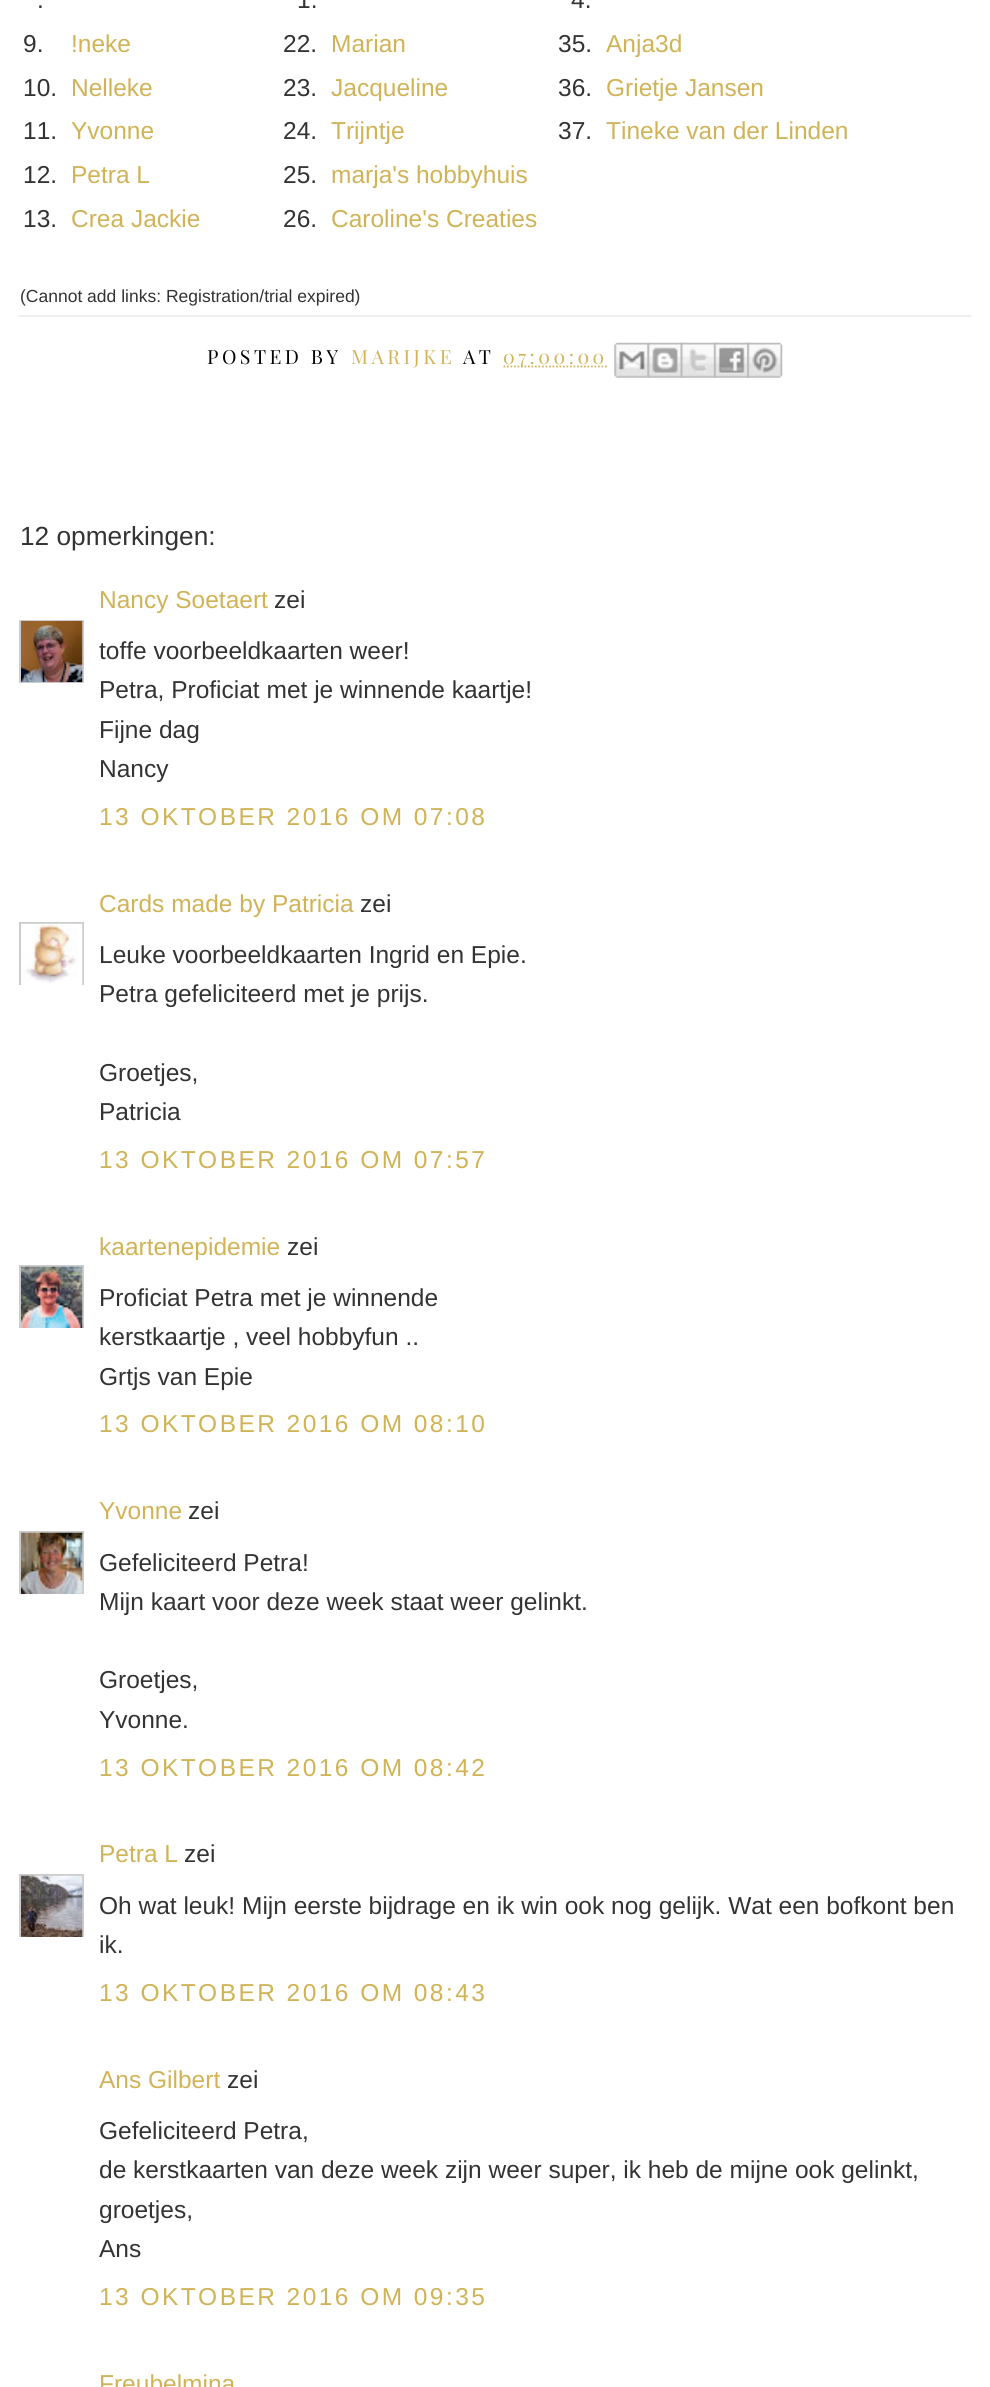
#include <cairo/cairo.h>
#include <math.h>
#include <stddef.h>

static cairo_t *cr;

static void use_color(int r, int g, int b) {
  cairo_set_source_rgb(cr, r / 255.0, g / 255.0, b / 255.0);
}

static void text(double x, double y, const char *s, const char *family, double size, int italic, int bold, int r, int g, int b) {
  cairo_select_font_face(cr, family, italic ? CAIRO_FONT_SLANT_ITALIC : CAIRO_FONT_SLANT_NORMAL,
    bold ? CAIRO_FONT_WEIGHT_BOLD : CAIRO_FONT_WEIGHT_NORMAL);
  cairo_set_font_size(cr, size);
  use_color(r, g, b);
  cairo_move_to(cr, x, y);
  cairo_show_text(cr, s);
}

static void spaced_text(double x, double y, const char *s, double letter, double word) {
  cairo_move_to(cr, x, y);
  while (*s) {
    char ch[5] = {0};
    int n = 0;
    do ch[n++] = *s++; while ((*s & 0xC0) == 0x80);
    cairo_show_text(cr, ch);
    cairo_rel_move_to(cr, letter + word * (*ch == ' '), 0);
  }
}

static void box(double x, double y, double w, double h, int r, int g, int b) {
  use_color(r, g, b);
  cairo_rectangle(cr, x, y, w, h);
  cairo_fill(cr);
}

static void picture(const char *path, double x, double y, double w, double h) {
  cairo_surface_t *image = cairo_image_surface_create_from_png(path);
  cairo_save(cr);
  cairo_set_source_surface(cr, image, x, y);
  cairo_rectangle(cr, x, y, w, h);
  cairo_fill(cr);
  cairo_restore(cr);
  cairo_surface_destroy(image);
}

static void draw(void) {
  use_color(255, 255, 255);
  cairo_paint(cr);
  box(19, 315, 952, 2, 238, 238, 238);
  cairo_new_path(cr);
  cairo_move_to(cr, 503.5, 366.5);
  cairo_line_to(cr, 608.5, 366.5);
  use_color(208, 179, 87);
  cairo_set_line_width(cr, 1.8);
  cairo_set_dash(cr, (double[]){1.75, 1.75}, 2, 0);
  cairo_stroke(cr);
  picture("img_01.png", 614, 342, 36, 36);
  picture("img_02.png", 647, 342, 36, 36);
  picture("img_03.png", 680, 342, 36, 36);
  picture("img_04.png", 714, 342, 35, 36);
  picture("img_05.png", 747, 342, 36, 36);
  cairo_save(cr);
  cairo_rectangle(cr, 19, 620, 65, 63);
  cairo_clip(cr);
  cairo_rectangle(cr, 20, 621, 63, 62);
  use_color(204, 204, 204);
  cairo_set_line_width(cr, 2);
  cairo_set_dash(cr, NULL, 0, 0);
  cairo_stroke(cr);
  cairo_restore(cr);
  picture("img_06.png", 21, 621, 62, 62);
  cairo_save(cr);
  cairo_rectangle(cr, 19, 922, 65, 63);
  cairo_clip(cr);
  cairo_rectangle(cr, 20, 923, 63, 63);
  use_color(204, 204, 204);
  cairo_set_line_width(cr, 2);
  cairo_set_dash(cr, NULL, 0, 0);
  cairo_stroke(cr);
  cairo_restore(cr);
  picture("img_07.png", 21, 923, 62, 62);
  cairo_save(cr);
  cairo_rectangle(cr, 19, 1265, 65, 63);
  cairo_clip(cr);
  cairo_rectangle(cr, 20, 1266, 63, 63);
  use_color(204, 204, 204);
  cairo_set_line_width(cr, 2);
  cairo_set_dash(cr, NULL, 0, 0);
  cairo_stroke(cr);
  cairo_restore(cr);
  picture("img_08.png", 21, 1266, 62, 62);
  cairo_save(cr);
  cairo_rectangle(cr, 19, 1531, 65, 63);
  cairo_clip(cr);
  cairo_rectangle(cr, 20, 1532, 63, 63);
  use_color(204, 204, 204);
  cairo_set_line_width(cr, 2);
  cairo_set_dash(cr, NULL, 0, 0);
  cairo_stroke(cr);
  cairo_restore(cr);
  picture("img_09.png", 21, 1532, 62, 62);
  cairo_save(cr);
  cairo_rectangle(cr, 19, 1874, 65, 63);
  cairo_clip(cr);
  cairo_rectangle(cr, 20, 1875, 63, 63);
  use_color(204, 204, 204);
  cairo_set_line_width(cr, 2);
  cairo_set_dash(cr, NULL, 0, 0);
  cairo_stroke(cr);
  cairo_restore(cr);
  picture("img_10.png", 21, 1875, 62, 62);
  text(37, 8, ".", "Liberation Sans", 24.5, 0, 0, 51, 51, 51);
  text(297, 8, "1.", "Liberation Sans", 24.5, 0, 0, 51, 51, 51);
  text(571, 8, "4.", "Liberation Sans", 24.5, 0, 0, 51, 51, 51);
  text(23, 52, "9.", "Liberation Sans", 24.5, 0, 0, 51, 51, 51);
  text(71, 52, "!neke", "Liberation Sans", 24.5, 0, 0, 208, 179, 87);
  text(283, 52, "22.", "Liberation Sans", 24.5, 0, 0, 51, 51, 51);
  text(331, 52, "Marian", "Liberation Sans", 24.5, 0, 0, 208, 179, 87);
  text(558, 52, "35.", "Liberation Sans", 24.5, 0, 0, 51, 51, 51);
  text(606, 52, "Anja3d", "Liberation Sans", 24.5, 0, 0, 208, 179, 87);
  text(23, 96, "10.", "Liberation Sans", 24.5, 0, 0, 51, 51, 51);
  text(71, 96, "Nelleke", "Liberation Sans", 24.5, 0, 0, 208, 179, 87);
  text(283, 96, "23.", "Liberation Sans", 24.5, 0, 0, 51, 51, 51);
  text(331, 96, "Jacqueline", "Liberation Sans", 24.5, 0, 0, 208, 179, 87);
  text(558, 96, "36.", "Liberation Sans", 24.5, 0, 0, 51, 51, 51);
  text(606, 96, "Grietje Jansen", "Liberation Sans", 24.5, 0, 0, 208, 179, 87);
  text(23, 139, "11.", "Liberation Sans", 24.5, 0, 0, 51, 51, 51);
  text(71, 139, "Yvonne", "Liberation Sans", 24.5, 0, 0, 208, 179, 87);
  text(283, 139, "24.", "Liberation Sans", 24.5, 0, 0, 51, 51, 51);
  text(331, 139, "Trijntje", "Liberation Sans", 24.5, 0, 0, 208, 179, 87);
  text(558, 139, "37.", "Liberation Sans", 24.5, 0, 0, 51, 51, 51);
  text(606, 139, "Tineke van der Linden", "Liberation Sans", 24.5, 0, 0, 208, 179, 87);
  text(23, 183, "12.", "Liberation Sans", 24.5, 0, 0, 51, 51, 51);
  text(71, 183, "Petra L", "Liberation Sans", 24.5, 0, 0, 208, 179, 87);
  text(283, 183, "25.", "Liberation Sans", 24.5, 0, 0, 51, 51, 51);
  text(331, 183, "marja's hobbyhuis", "Liberation Sans", 24.5, 0, 0, 208, 179, 87);
  text(23, 227, "13.", "Liberation Sans", 24.5, 0, 0, 51, 51, 51);
  text(71, 227, "Crea Jackie", "Liberation Sans", 24.5, 0, 0, 208, 179, 87);
  text(283, 227, "26.", "Liberation Sans", 24.5, 0, 0, 51, 51, 51);
  text(331, 227, "Caroline's Creaties", "Liberation Sans", 24.5, 0, 0, 208, 179, 87);
  text(20, 302, "(Cannot add links: Registration/trial expired)", "Liberation Sans", 17.5, 0, 0, 51, 51, 51);
  cairo_select_font_face(cr, "Playfair Display", CAIRO_FONT_SLANT_NORMAL, CAIRO_FONT_WEIGHT_NORMAL);
  cairo_set_font_size(cr, 19.5);
  use_color(0, 0, 0);
  spaced_text(207, 364, "POSTED BY", 3.5, 0);
  use_color(208, 179, 87);
  spaced_text(351, 364, "MARIJKE", 3.5, 0);
  use_color(0, 0, 0);
  spaced_text(463, 364, "AT", 3.5, 0);
  use_color(208, 179, 87);
  spaced_text(503, 364, "07:00:00", 3.5, 0);
  text(20, 545, "12 opmerkingen:", "Liberation Sans", 26.25, 0, 0, 51, 51, 51);
  text(99, 608, "Nancy Soetaert", "Liberation Sans", 24.5, 0, 0, 208, 179, 87);
  text(274, 608, "zei", "Liberation Sans", 24.5, 0, 0, 51, 51, 51);
  text(99, 659, "toffe voorbeeldkaarten weer!", "Liberation Sans", 24.5, 0, 0, 51, 51, 51);
  text(99, 698, "Petra, Proficiat met je winnende kaartje!", "Liberation Sans", 24.5, 0, 0, 51, 51, 51);
  text(99, 738, "Fijne dag", "Liberation Sans", 24.5, 0, 0, 51, 51, 51);
  text(99, 777, "Nancy", "Liberation Sans", 24.5, 0, 0, 51, 51, 51);
  use_color(208, 179, 87);
  spaced_text(99, 825, "13 OKTOBER 2016 OM 07:08", 2.45, 0);
  text(99, 912, "Cards made by Patricia", "Liberation Sans", 24.5, 0, 0, 208, 179, 87);
  text(360, 912, "zei", "Liberation Sans", 24.5, 0, 0, 51, 51, 51);
  text(99, 963, "Leuke voorbeeldkaarten Ingrid en Epie.", "Liberation Sans", 24.5, 0, 0, 51, 51, 51);
  text(99, 1002, "Petra gefeliciteerd met je prijs.", "Liberation Sans", 24.5, 0, 0, 51, 51, 51);
  text(99, 1081, "Groetjes,", "Liberation Sans", 24.5, 0, 0, 51, 51, 51);
  text(99, 1120, "Patricia", "Liberation Sans", 24.5, 0, 0, 51, 51, 51);
  use_color(208, 179, 87);
  spaced_text(99, 1168, "13 OKTOBER 2016 OM 07:57", 2.45, 0);
  text(99, 1255, "kaartenepidemie", "Liberation Sans", 24.5, 0, 0, 208, 179, 87);
  text(287, 1255, "zei", "Liberation Sans", 24.5, 0, 0, 51, 51, 51);
  text(99, 1306, "Proficiat Petra met je winnende", "Liberation Sans", 24.5, 0, 0, 51, 51, 51);
  text(99, 1345, "kerstkaartje , veel hobbyfun ..", "Liberation Sans", 24.5, 0, 0, 51, 51, 51);
  text(99, 1385, "Grtjs van Epie", "Liberation Sans", 24.5, 0, 0, 51, 51, 51);
  use_color(208, 179, 87);
  spaced_text(99, 1432, "13 OKTOBER 2016 OM 08:10", 2.45, 0);
  text(99, 1519, "Yvonne", "Liberation Sans", 24.5, 0, 0, 208, 179, 87);
  text(188, 1519, "zei", "Liberation Sans", 24.5, 0, 0, 51, 51, 51);
  text(99, 1571, "Gefeliciteerd Petra!", "Liberation Sans", 24.5, 0, 0, 51, 51, 51);
  text(99, 1610, "Mijn kaart voor deze week staat weer gelinkt.", "Liberation Sans", 24.5, 0, 0, 51, 51, 51);
  text(99, 1688, "Groetjes,", "Liberation Sans", 24.5, 0, 0, 51, 51, 51);
  text(99, 1728, "Yvonne.", "Liberation Sans", 24.5, 0, 0, 51, 51, 51);
  use_color(208, 179, 87);
  spaced_text(99, 1776, "13 OKTOBER 2016 OM 08:42", 2.45, 0);
  text(99, 1862, "Petra L", "Liberation Sans", 24.5, 0, 0, 208, 179, 87);
  text(184, 1862, "zei", "Liberation Sans", 24.5, 0, 0, 51, 51, 51);
  text(99, 1914, "Oh wat leuk! Mijn eerste bijdrage en ik win ook nog gelijk. Wat een bofkont ben", "Liberation Sans", 24.5, 0, 0, 51, 51, 51);
  text(99, 1953, "ik.", "Liberation Sans", 24.5, 0, 0, 51, 51, 51);
  use_color(208, 179, 87);
  spaced_text(99, 2001, "13 OKTOBER 2016 OM 08:43", 2.45, 0);
  text(99, 2088, "Ans Gilbert", "Liberation Sans", 24.5, 0, 0, 208, 179, 87);
  text(227, 2088, "zei", "Liberation Sans", 24.5, 0, 0, 51, 51, 51);
  text(99, 2139, "Gefeliciteerd Petra,", "Liberation Sans", 24.5, 0, 0, 51, 51, 51);
  text(99, 2178, "de kerstkaarten van deze week zijn weer super, ik heb de mijne ook gelinkt,", "Liberation Sans", 24.5, 0, 0, 51, 51, 51);
  text(99, 2218, "groetjes,", "Liberation Sans", 24.5, 0, 0, 51, 51, 51);
  text(99, 2257, "Ans", "Liberation Sans", 24.5, 0, 0, 51, 51, 51);
  use_color(208, 179, 87);
  spaced_text(99, 2305, "13 OKTOBER 2016 OM 09:35", 2.45, 0);
  text(99, 2392, "Freubelmina", "Liberation Sans", 24.5, 0, 0, 208, 179, 87);
}

int main(void) {
  cairo_surface_t *surface = cairo_image_surface_create(CAIRO_FORMAT_RGB24, 990, 2387);
  cr = cairo_create(surface);
  cairo_font_options_t *options = cairo_font_options_create();
  cairo_font_options_set_hint_metrics(options, CAIRO_HINT_METRICS_OFF);
  cairo_font_options_set_hint_style(options, CAIRO_HINT_STYLE_NONE);
  cairo_set_font_options(cr, options);
  cairo_set_miter_limit(cr, 4);
  draw();
  cairo_surface_write_to_png(surface, "out.png");
  cairo_font_options_destroy(options);
  cairo_destroy(cr);
  cairo_surface_destroy(surface);
  return 0;
}
